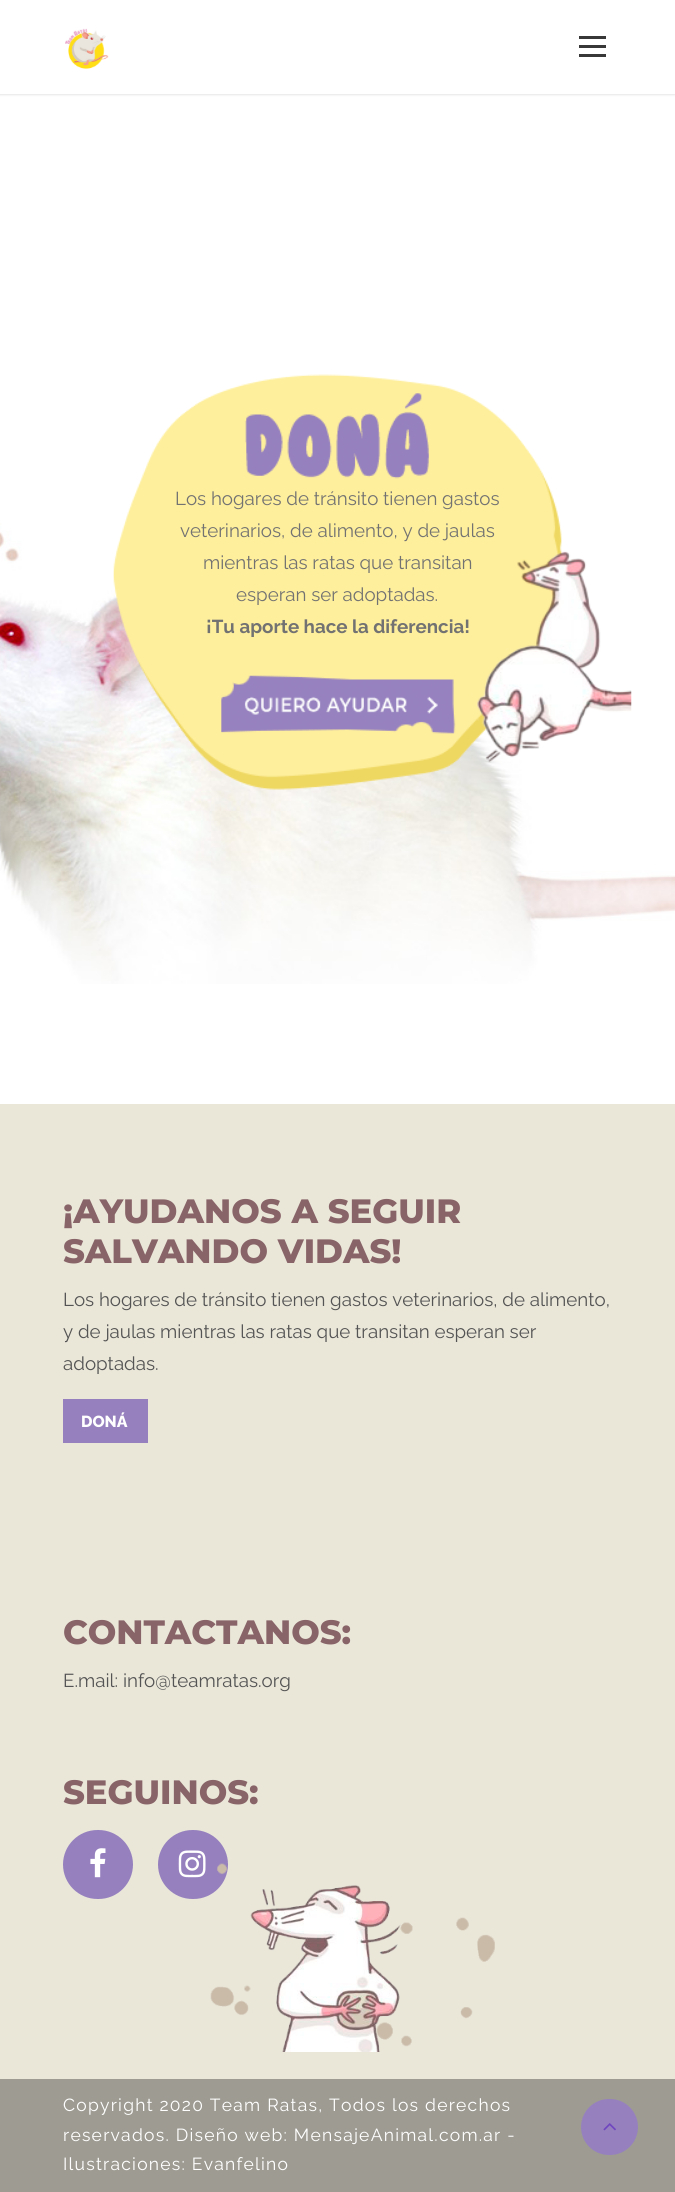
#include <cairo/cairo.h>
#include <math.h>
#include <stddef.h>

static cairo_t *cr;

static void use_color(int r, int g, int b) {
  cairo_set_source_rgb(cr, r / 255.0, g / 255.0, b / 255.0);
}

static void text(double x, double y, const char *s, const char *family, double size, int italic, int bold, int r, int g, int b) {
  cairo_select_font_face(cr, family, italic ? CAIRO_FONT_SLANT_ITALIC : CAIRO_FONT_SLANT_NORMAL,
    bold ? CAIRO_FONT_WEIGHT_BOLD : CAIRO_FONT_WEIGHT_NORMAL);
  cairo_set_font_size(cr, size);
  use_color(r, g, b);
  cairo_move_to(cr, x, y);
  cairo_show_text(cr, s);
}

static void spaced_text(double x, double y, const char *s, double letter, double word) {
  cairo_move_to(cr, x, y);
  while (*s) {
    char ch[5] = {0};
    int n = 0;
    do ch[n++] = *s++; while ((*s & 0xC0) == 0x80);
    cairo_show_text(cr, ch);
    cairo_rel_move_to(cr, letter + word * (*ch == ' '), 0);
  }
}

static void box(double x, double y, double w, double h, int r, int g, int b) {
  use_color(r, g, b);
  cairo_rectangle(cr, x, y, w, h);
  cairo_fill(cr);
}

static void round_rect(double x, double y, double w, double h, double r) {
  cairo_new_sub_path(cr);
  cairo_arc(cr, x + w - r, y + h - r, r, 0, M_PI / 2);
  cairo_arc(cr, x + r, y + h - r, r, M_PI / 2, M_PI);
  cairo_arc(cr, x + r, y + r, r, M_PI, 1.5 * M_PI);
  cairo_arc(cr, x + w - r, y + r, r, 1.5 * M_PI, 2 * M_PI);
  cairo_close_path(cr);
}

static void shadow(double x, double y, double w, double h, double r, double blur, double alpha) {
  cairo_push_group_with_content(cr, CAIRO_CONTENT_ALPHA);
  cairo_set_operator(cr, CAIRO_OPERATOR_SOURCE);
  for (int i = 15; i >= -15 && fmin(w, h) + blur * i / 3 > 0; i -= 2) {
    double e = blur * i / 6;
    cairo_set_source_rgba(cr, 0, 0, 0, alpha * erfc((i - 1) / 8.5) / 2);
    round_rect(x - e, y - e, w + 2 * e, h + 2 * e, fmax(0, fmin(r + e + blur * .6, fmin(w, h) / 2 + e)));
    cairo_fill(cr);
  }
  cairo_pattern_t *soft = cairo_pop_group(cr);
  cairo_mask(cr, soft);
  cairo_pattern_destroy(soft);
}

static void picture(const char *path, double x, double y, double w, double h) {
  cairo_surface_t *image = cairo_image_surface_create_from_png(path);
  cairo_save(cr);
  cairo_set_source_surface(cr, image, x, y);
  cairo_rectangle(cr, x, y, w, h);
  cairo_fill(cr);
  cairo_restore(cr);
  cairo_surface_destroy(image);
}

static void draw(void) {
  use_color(255, 255, 255);
  cairo_paint(cr);
  use_color(0, 0, 0);
  shadow(0, 1, 675, 94, 0, 1, 0.1);
  box(0, 0, 675, 94, 255, 255, 255);
  picture("img_01.png", 65, 28, 44, 41);
  box(579, 36, 27, 3, 56, 56, 56);
  box(579, 45, 27, 3, 56, 56, 56);
  box(579, 54, 27, 3, 56, 56, 56);
  picture("img_05.png", 0, 523, 675, 461);
  picture("img_02.png", 113, 374, 519, 416);
  picture("img_03.png", 245, 393, 184, 86);
  picture("img_04.png", 221, 675, 235, 59);
  box(0, 1104, 675, 975, 234, 231, 217);
  box(63, 1399, 85, 44, 150, 129, 190);
  round_rect(63, 1830, 70, 69, 34.5);
  cairo_fill(cr);
  picture("img_06.png", 90, 1848, 16, 30);
  round_rect(158, 1830, 70, 69, 34.5);
  cairo_fill(cr);
  picture("img_07.png", 178, 1850, 28, 28);
  picture("img_08.png", 210, 1863, 285, 189);
  box(0, 2079, 675, 113, 157, 155, 146);
  use_color(150, 129, 190);
  round_rect(581, 2099, 57, 56, 28);
  cairo_fill(cr);
  picture("img_09.png", 603, 2123, 13, 8);
  text(175, 505, "Los hogares de tránsito tienen gastos", "Raleway", 18.75, 0, 0, 114, 114, 114);
  text(180, 537, "veterinarios, de alimento, y de jaulas", "Raleway", 18.75, 0, 0, 114, 114, 114);
  text(203, 569, "mientras las ratas que transitan", "Raleway", 18.75, 0, 0, 114, 114, 114);
  text(236, 601, "esperan ser adoptadas.", "Raleway", 18.75, 0, 0, 114, 114, 114);
  text(206, 633, "¡Tu aporte hace la diferencia!", "Raleway", 18.75, 0, 1, 114, 114, 114);
  text(63, 1223, "¡AYUDANOS A SEGUIR", "Montserrat ExtraBold", 33.75, 0, 0, 136, 99, 103);
  text(63, 1263, "SALVANDO VIDAS!", "Montserrat ExtraBold", 33.75, 0, 0, 136, 99, 103);
  text(63, 1306, "Los hogares de tránsito tienen gastos veterinarios, de alimento,", "Raleway", 18.75, 0, 0, 84, 84, 84);
  text(63, 1338, "y de jaulas mientras las ratas que transitan esperan ser", "Raleway", 18.75, 0, 0, 84, 84, 84);
  text(63, 1370, "adoptadas.", "Raleway", 18.75, 0, 0, 84, 84, 84);
  text(81, 1427, "DONÁ", "Raleway ExtraBold", 16, 0, 0, 255, 255, 255);
  text(63, 1644, "CONTACTANOS:", "Montserrat ExtraBold", 33.75, 0, 0, 136, 99, 103);
  text(63, 1687, "E.mail: info@teamratas.org", "Raleway", 18.75, 0, 0, 84, 84, 84);
  text(63, 1804, "SEGUINOS:", "Montserrat ExtraBold", 33.75, 0, 0, 136, 99, 103);
  cairo_select_font_face(cr, "Raleway", CAIRO_FONT_SLANT_NORMAL, CAIRO_FONT_WEIGHT_NORMAL);
  cairo_set_font_size(cr, 17.5);
  use_color(255, 255, 255);
  spaced_text(63, 2111, "Copyright 2020 Team Ratas, Todos los derechos", 1.25, 0);
  spaced_text(63, 2141, "reservados. Diseño web: MensajeAnimal.com.ar -", 1.25, 0);
  spaced_text(63, 2170, "Ilustraciones: Evanfelino", 1.25, 0);
}

int main(void) {
  cairo_surface_t *surface = cairo_image_surface_create(CAIRO_FORMAT_RGB24, 675, 2192);
  cr = cairo_create(surface);
  cairo_font_options_t *options = cairo_font_options_create();
  cairo_font_options_set_hint_metrics(options, CAIRO_HINT_METRICS_OFF);
  cairo_font_options_set_hint_style(options, CAIRO_HINT_STYLE_NONE);
  cairo_set_font_options(cr, options);
  cairo_set_miter_limit(cr, 4);
  draw();
  cairo_surface_write_to_png(surface, "out.png");
  cairo_font_options_destroy(options);
  cairo_destroy(cr);
  cairo_surface_destroy(surface);
  return 0;
}
